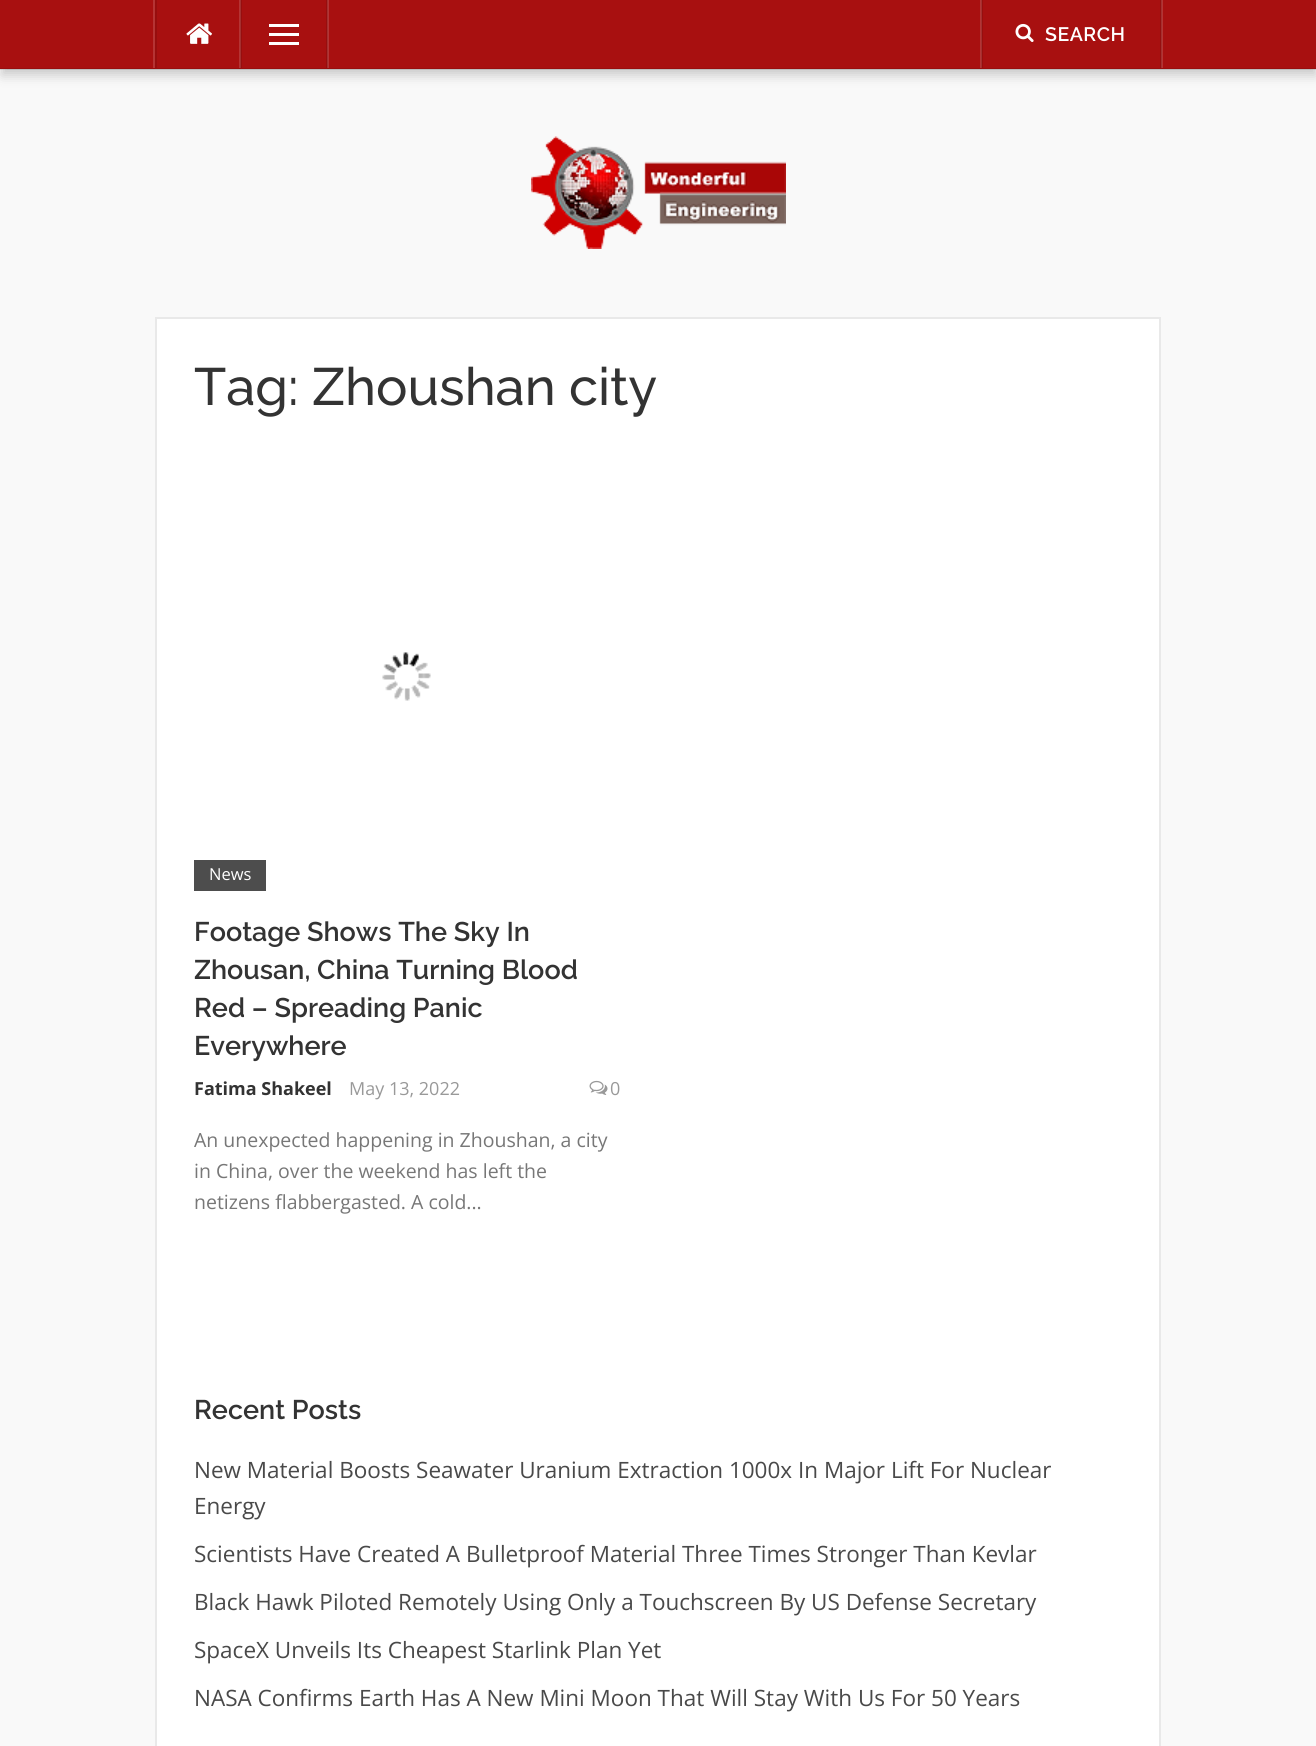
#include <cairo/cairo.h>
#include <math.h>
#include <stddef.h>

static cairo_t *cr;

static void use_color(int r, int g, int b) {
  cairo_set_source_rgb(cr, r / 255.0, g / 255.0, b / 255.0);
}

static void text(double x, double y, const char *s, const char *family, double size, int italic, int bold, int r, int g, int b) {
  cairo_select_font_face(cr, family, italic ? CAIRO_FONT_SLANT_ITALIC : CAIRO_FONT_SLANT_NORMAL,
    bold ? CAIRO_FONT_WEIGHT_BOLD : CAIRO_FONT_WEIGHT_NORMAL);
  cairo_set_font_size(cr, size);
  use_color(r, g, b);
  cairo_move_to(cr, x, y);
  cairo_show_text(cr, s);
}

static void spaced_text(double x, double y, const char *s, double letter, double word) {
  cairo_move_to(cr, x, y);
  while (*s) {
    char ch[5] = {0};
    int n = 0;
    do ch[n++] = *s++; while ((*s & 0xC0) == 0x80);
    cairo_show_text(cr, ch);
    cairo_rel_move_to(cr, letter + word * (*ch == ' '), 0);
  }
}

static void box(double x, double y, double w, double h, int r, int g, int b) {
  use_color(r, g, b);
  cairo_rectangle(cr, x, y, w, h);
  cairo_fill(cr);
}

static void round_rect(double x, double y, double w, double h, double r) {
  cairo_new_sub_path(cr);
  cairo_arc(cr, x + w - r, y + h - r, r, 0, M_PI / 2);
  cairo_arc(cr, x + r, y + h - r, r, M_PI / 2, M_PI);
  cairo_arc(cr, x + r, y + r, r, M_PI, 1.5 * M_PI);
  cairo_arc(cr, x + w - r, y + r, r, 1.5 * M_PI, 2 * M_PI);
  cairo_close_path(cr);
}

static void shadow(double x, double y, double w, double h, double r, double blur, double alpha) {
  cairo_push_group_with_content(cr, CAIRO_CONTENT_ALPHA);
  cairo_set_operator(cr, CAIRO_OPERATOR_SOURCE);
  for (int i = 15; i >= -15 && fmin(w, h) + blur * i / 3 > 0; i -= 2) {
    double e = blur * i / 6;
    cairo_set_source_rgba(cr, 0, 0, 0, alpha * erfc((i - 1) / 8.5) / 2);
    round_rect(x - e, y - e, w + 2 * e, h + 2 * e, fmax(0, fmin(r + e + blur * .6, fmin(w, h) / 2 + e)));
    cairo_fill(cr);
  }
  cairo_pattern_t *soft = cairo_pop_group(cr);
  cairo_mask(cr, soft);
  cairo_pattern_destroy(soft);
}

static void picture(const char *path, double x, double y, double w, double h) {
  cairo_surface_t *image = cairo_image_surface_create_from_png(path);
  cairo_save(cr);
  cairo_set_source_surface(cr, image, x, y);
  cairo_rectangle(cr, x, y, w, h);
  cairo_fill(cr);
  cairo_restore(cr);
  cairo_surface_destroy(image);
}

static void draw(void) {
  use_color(249, 249, 249);
  cairo_paint(cr);
  use_color(0, 0, 0);
  shadow(2, 9, 1314, 66, 0, 6, 0.2);
  box(0, 0, 1316, 69, 168, 16, 16);
  box(982, 0, 1, 68, 151, 14, 14);
  box(1160, 0, 1, 68, 151, 14, 14);
  box(326, 0, 1, 68, 151, 14, 14);
  box(241, 0, 1, 68, 151, 14, 14);
  box(153, 0, 2, 68, 181, 52, 52);
  box(155, 0, 2, 68, 151, 14, 14);
  picture("img_01.png", 186, 23, 26, 21);
  box(239, 0, 1, 68, 181, 52, 52);
  box(240, 0, 1, 68, 163, 47, 47);
  box(269, 33, 30, 3, 255, 255, 255);
  box(269, 24, 30, 3, 255, 255, 255);
  box(269, 42, 30, 3, 255, 255, 255);
  box(328, 0, 1, 68, 181, 52, 52);
  box(327, 0, 1, 68, 163, 47, 47);
  box(980, 0, 1, 68, 181, 52, 52);
  box(981, 0, 1, 68, 163, 47, 47);
  picture("img_02.png", 1015, 23, 19, 19);
  box(1162, 0, 1, 68, 181, 52, 52);
  box(1161, 0, 1, 68, 163, 47, 47);
  cairo_set_source_rgba(cr, 0, 0, 0, 0.1);
  cairo_rectangle(cr, 0, 68, 1316, 2);
  cairo_fill(cr);
  picture("img_03.png", 531, 136, 255, 113);
  use_color(255, 255, 255);
  cairo_rectangle(cr, 156, 318, 1004, 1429);
  cairo_fill_preserve(cr);
  use_color(233, 233, 233);
  cairo_stroke(cr);
  picture("img_04.png", 382, 652, 49, 49);
  box(194, 860, 72, 31, 77, 77, 77);
  picture("img_05.png", 589, 1080, 19, 15);
  cairo_select_font_face(cr, "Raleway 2 Thin", CAIRO_FONT_SLANT_NORMAL, CAIRO_FONT_WEIGHT_NORMAL);
  cairo_set_font_size(cr, 19.5);
  use_color(255, 255, 255);
  spaced_text(1045, 41, "SEARCH", 0.5, 0);
  text(194, 405, "Tag: Zhoushan city", "Raleway Thin", 52.5, 0, 0, 51, 51, 51);
  text(209, 880, "News", "Open Sans", 16.5, 0, 0, 255, 255, 255);
  text(194, 941, "Footage Shows The Sky In", "Raleway 2 Thin", 27, 0, 0, 51, 51, 51);
  text(194, 979, "Zhousan, China Turning Blood", "Raleway 2 Thin", 27, 0, 0, 51, 51, 51);
  text(194, 1017, "Red – Spreading Panic", "Raleway 2 Thin", 27, 0, 0, 51, 51, 51);
  text(194, 1055, "Everywhere", "Raleway 2 Thin", 27, 0, 0, 51, 51, 51);
  text(194, 1095, "Fatima Shakeel", "Open Sans", 18, 0, 1, 51, 51, 51);
  text(349, 1095, "May 13, 2022", "Open Sans", 18, 0, 0, 153, 153, 153);
  text(610, 1095, "0", "Open Sans", 18, 0, 0, 153, 153, 153);
  text(194, 1147, "An unexpected happening in Zhoushan, a city", "Open Sans", 19.5, 0, 0, 119, 119, 119);
  text(194, 1178, "in China, over the weekend has left the", "Open Sans", 19.5, 0, 0, 119, 119, 119);
  text(194, 1209, "netizens flabbergasted. A cold...", "Open Sans", 19.5, 0, 0, 119, 119, 119);
  text(194, 1419, "Recent Posts", "Raleway 2 Thin", 27, 0, 0, 51, 51, 51);
  text(194, 1478, "New Material Boosts Seawater Uranium Extraction 1000x In Major Lift For Nuclear", "Open Sans", 22.5, 0, 0, 73, 73, 73);
  text(194, 1514, "Energy", "Open Sans", 22.5, 0, 0, 73, 73, 73);
  text(194, 1562, "Scientists Have Created A Bulletproof Material Three Times Stronger Than Kevlar", "Open Sans", 22.5, 0, 0, 73, 73, 73);
  text(194, 1610, "Black Hawk Piloted Remotely Using Only a Touchscreen By US Defense Secretary", "Open Sans", 22.5, 0, 0, 73, 73, 73);
  text(194, 1658, "SpaceX Unveils Its Cheapest Starlink Plan Yet", "Open Sans", 22.5, 0, 0, 73, 73, 73);
  text(194, 1706, "NASA Confirms Earth Has A New Mini Moon That Will Stay With Us For 50 Years", "Open Sans", 22.5, 0, 0, 73, 73, 73);
}

int main(void) {
  cairo_surface_t *surface = cairo_image_surface_create(CAIRO_FORMAT_RGB24, 1316, 1746);
  cr = cairo_create(surface);
  cairo_font_options_t *options = cairo_font_options_create();
  cairo_font_options_set_hint_metrics(options, CAIRO_HINT_METRICS_OFF);
  cairo_font_options_set_hint_style(options, CAIRO_HINT_STYLE_NONE);
  cairo_set_font_options(cr, options);
  cairo_set_miter_limit(cr, 4);
  draw();
  cairo_surface_write_to_png(surface, "out.png");
  cairo_font_options_destroy(options);
  cairo_destroy(cr);
  cairo_surface_destroy(surface);
  return 0;
}
